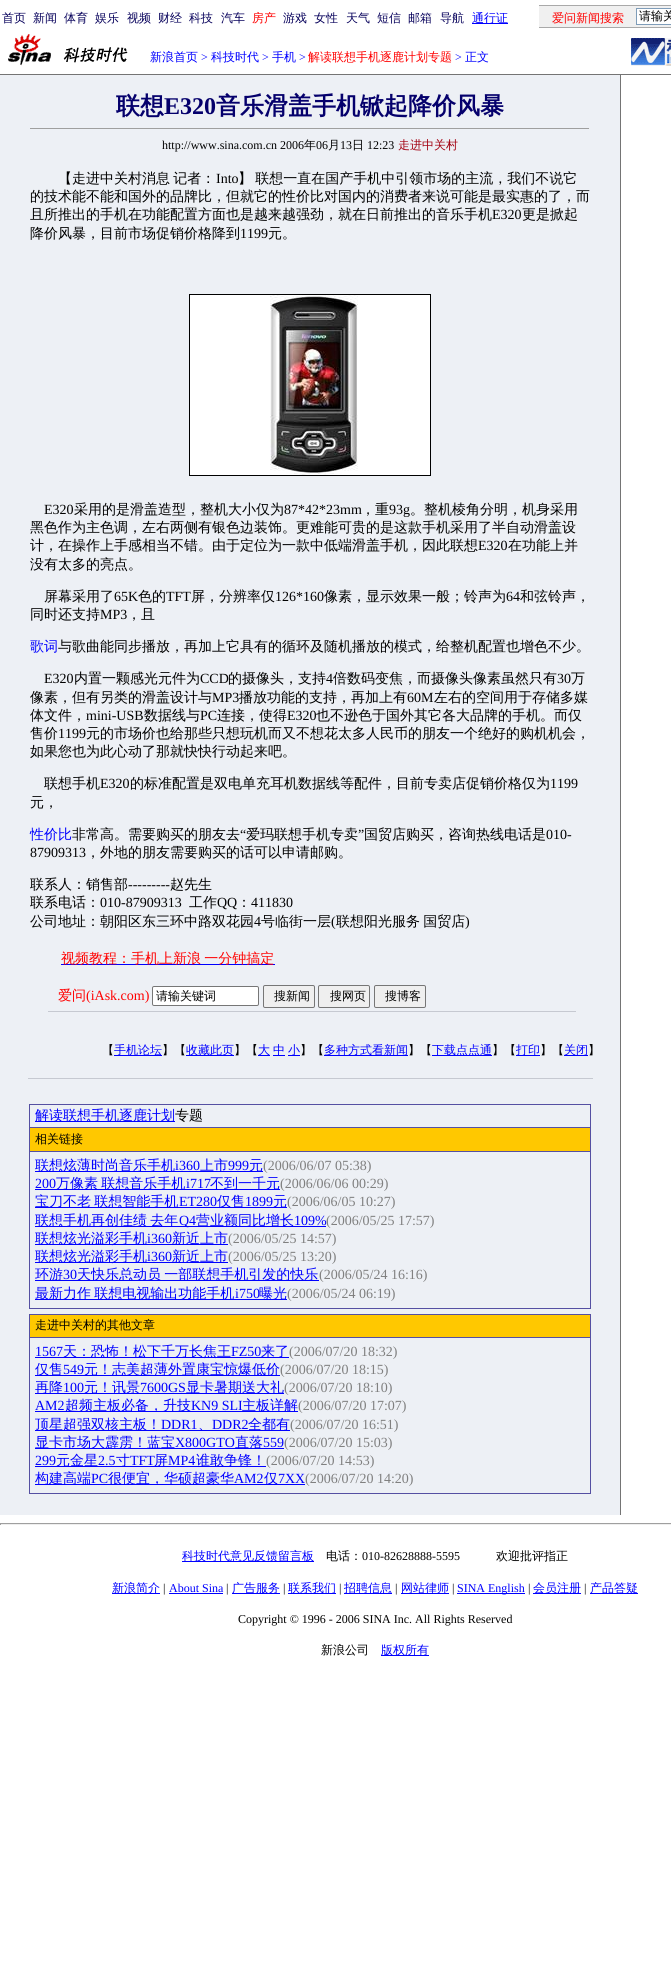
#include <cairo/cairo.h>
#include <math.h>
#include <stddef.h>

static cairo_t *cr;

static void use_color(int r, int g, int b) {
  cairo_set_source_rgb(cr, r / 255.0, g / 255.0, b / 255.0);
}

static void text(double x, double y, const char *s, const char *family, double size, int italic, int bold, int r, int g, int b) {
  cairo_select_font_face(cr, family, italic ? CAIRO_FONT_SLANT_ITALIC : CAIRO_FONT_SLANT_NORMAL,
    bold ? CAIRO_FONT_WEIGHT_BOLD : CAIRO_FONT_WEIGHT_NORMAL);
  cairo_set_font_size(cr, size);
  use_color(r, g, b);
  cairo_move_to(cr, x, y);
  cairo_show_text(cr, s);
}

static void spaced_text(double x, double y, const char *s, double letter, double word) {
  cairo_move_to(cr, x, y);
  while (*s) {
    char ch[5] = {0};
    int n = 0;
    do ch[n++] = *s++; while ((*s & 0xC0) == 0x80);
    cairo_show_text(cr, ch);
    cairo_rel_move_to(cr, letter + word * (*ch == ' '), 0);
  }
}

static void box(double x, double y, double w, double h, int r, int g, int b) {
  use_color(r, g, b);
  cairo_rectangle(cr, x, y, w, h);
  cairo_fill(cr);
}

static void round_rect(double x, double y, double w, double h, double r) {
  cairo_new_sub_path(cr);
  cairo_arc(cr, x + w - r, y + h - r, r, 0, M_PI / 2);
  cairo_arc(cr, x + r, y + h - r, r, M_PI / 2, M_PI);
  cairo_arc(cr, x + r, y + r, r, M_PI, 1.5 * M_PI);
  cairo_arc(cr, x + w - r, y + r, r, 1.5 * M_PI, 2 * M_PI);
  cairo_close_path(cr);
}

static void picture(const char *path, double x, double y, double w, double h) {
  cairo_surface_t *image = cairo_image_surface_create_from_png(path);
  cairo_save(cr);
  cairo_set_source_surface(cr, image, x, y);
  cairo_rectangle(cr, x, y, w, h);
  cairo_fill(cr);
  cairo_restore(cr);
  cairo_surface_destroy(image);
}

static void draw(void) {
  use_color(255, 255, 255);
  cairo_paint(cr);
  box(472, 23, 36, 1, 0, 0, 255);
  box(539, 5, 132, 1, 169, 169, 169);
  box(539, 6, 132, 21, 240, 240, 240);
  use_color(255, 255, 255);
  cairo_rectangle(cr, 636.5, 8.5, 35, 16);
  cairo_fill_preserve(cr);
  use_color(127, 157, 185);
  cairo_set_line_width(cr, 1);
  cairo_stroke(cr);
  box(539, 27, 132, 1, 169, 169, 169);
  picture("img_01.png", 8, 34, 120, 32);
  picture("img_02.png", 631, 38, 40, 28);
  box(0, 74, 671, 1, 116, 116, 116);
  box(0, 75, 620, 1440, 237, 240, 245);
  box(30, 128, 560, 1, 159, 159, 159);
  box(589, 128, 1, 1, 238, 238, 238);
  cairo_rectangle(cr, 189.5, 294.5, 241, 181);
  use_color(0, 0, 0);
  cairo_stroke(cr);
  picture("img_03.png", 190, 295, 240, 180);
  box(61, 964, 214, 1, 0, 0, 255);
  box(48, 1011, 528, 1, 198, 201, 209);
  use_color(255, 255, 255);
  round_rect(152.5, 986.5, 106, 19, 1.5);
  cairo_fill_preserve(cr);
  use_color(118, 118, 118);
  cairo_stroke(cr);
  use_color(239, 239, 239);
  round_rect(263.5, 985.5, 51, 22, 1.5);
  cairo_fill_preserve(cr);
  use_color(118, 118, 118);
  cairo_stroke(cr);
  use_color(239, 239, 239);
  round_rect(318.5, 985.5, 51, 22, 1.5);
  cairo_fill_preserve(cr);
  use_color(118, 118, 118);
  cairo_stroke(cr);
  use_color(239, 239, 239);
  round_rect(374.5, 985.5, 51, 22, 1.5);
  cairo_fill_preserve(cr);
  use_color(118, 118, 118);
  cairo_stroke(cr);
  box(114, 1055, 48, 1, 0, 0, 255);
  box(186, 1055, 48, 1, 0, 0, 255);
  box(258, 1055, 12, 1, 0, 0, 255);
  box(273, 1055, 12, 1, 0, 0, 255);
  box(288, 1055, 12, 1, 0, 0, 255);
  box(324, 1055, 84, 1, 0, 0, 255);
  box(432, 1055, 60, 1, 0, 0, 255);
  box(516, 1055, 24, 1, 0, 0, 255);
  box(564, 1055, 24, 1, 0, 0, 255);
  box(28, 1078, 565, 1, 198, 201, 209);
  box(29, 1104, 562, 205, 85, 80, 162);
  box(30, 1105, 560, 22, 237, 240, 245);
  box(35, 1121, 140, 1, 0, 0, 255);
  box(30, 1128, 560, 23, 255, 200, 0);
  box(30, 1152, 560, 156, 237, 240, 245);
  box(35, 1171, 228, 1, 0, 0, 255);
  box(35, 1189, 245, 1, 0, 0, 255);
  box(35, 1207, 252, 1, 0, 0, 255);
  box(35, 1226, 291, 1, 0, 0, 255);
  box(35, 1244, 193, 1, 0, 0, 255);
  box(35, 1262, 193, 1, 0, 0, 255);
  box(35, 1280, 284, 1, 0, 0, 255);
  box(35, 1299, 252, 1, 0, 0, 255);
  box(29, 1314, 562, 180, 85, 80, 162);
  box(30, 1315, 560, 22, 255, 200, 0);
  box(30, 1338, 560, 155, 237, 240, 245);
  box(35, 1357, 254, 1, 0, 0, 255);
  box(35, 1375, 245, 1, 0, 0, 255);
  box(35, 1393, 249, 1, 0, 0, 255);
  box(35, 1411, 263, 1, 0, 0, 255);
  box(35, 1430, 255, 1, 0, 0, 255);
  box(35, 1448, 249, 1, 0, 0, 255);
  box(35, 1466, 231, 1, 0, 0, 255);
  box(35, 1484, 270, 1, 0, 0, 255);
  box(620, 75, 1, 1440, 116, 116, 116);
  box(0, 1523, 671, 1, 159, 159, 159);
  box(0, 1524, 671, 1, 238, 238, 238);
  box(0, 1523, 1, 2, 159, 159, 159);
  box(182, 1561, 132, 1, 0, 0, 255);
  box(112, 1593, 48, 1, 0, 0, 255);
  box(169, 1593, 54, 1, 0, 0, 255);
  box(232, 1593, 48, 1, 0, 0, 255);
  box(288, 1593, 48, 1, 0, 0, 255);
  box(344, 1593, 48, 1, 0, 0, 255);
  box(401, 1593, 48, 1, 0, 0, 255);
  box(457, 1593, 68, 1, 0, 0, 255);
  box(533, 1593, 48, 1, 0, 0, 255);
  box(590, 1593, 48, 1, 0, 0, 255);
  box(381, 1655, 48, 1, 0, 0, 255);
  text(2, 22, "首页", "WenQuanYi Zen Hei Medium", 12, 0, 0, 7, 1, 91);
  text(33, 22, "新闻", "WenQuanYi Zen Hei Medium", 12, 0, 0, 7, 1, 91);
  text(64, 22, "体育", "WenQuanYi Zen Hei Medium", 12, 0, 0, 7, 1, 91);
  text(95, 22, "娱乐", "WenQuanYi Zen Hei Medium", 12, 0, 0, 7, 1, 91);
  text(127, 22, "视频", "WenQuanYi Zen Hei Medium", 12, 0, 0, 7, 1, 91);
  text(158, 22, "财经", "WenQuanYi Zen Hei Medium", 12, 0, 0, 7, 1, 91);
  text(189, 22, "科技", "WenQuanYi Zen Hei Medium", 12, 0, 0, 7, 1, 91);
  text(221, 22, "汽车", "WenQuanYi Zen Hei Medium", 12, 0, 0, 7, 1, 91);
  text(252, 22, "房产", "WenQuanYi Zen Hei Medium", 12, 0, 0, 255, 0, 0);
  text(283, 22, "游戏", "WenQuanYi Zen Hei Medium", 12, 0, 0, 7, 1, 91);
  text(314, 22, "女性", "WenQuanYi Zen Hei Medium", 12, 0, 0, 7, 1, 91);
  text(346, 22, "天气", "WenQuanYi Zen Hei Medium", 12, 0, 0, 7, 1, 91);
  text(377, 22, "短信", "WenQuanYi Zen Hei Medium", 12, 0, 0, 7, 1, 91);
  text(408, 22, "邮箱", "WenQuanYi Zen Hei Medium", 12, 0, 0, 7, 1, 91);
  text(440, 22, "导航", "WenQuanYi Zen Hei Medium", 12, 0, 0, 7, 1, 91);
  text(472, 22, "通行证", "WenQuanYi Zen Hei Medium", 12, 0, 0, 0, 0, 255);
  text(552, 22, "爱问新闻搜索", "WenQuanYi Zen Hei Medium", 12, 0, 0, 255, 0, 0);
  text(639, 20, "请输关", "WenQuanYi Zen Hei Medium", 12, 0, 0, 0, 0, 0);
  text(150, 61, "新浪首页", "WenQuanYi Zen Hei Medium", 12, 0, 0, 0, 0, 255);
  text(201, 61, ">", "Liberation Serif", 12, 0, 0, 0, 0, 255);
  text(211, 61, "科技时代", "WenQuanYi Zen Hei Medium", 12, 0, 0, 0, 0, 255);
  text(262, 61, ">", "Liberation Serif", 12, 0, 0, 0, 0, 255);
  text(272, 61, "手机", "WenQuanYi Zen Hei Medium", 12, 0, 0, 0, 0, 255);
  text(299, 61, ">", "Liberation Serif", 12, 0, 0, 0, 0, 255);
  text(308, 61, "解读联想手机逐鹿计划专题", "WenQuanYi Zen Hei Medium", 12, 0, 0, 255, 0, 0);
  text(455, 61, ">", "Liberation Serif", 12, 0, 0, 0, 0, 255);
  text(465, 61, "正文", "WenQuanYi Zen Hei Medium", 12, 0, 0, 0, 0, 255);
  text(116, 114, "联想", "WenQuanYi Zen Hei", 24, 0, 1, 5, 0, 108);
  text(164, 114, "E320", "Liberation Serif", 24, 0, 1, 5, 0, 108);
  text(216, 114, "音乐滑盖手机锨起降价风暴", "WenQuanYi Zen Hei", 24, 0, 1, 5, 0, 108);
  text(162, 149, "http://www.sina.com.cn 2006", "Liberation Serif", 12, 0, 0, 0, 0, 0);
  text(304, 149, "年", "WenQuanYi Zen Hei Medium", 12, 0, 0, 0, 0, 0);
  text(316, 149, "06", "Liberation Serif", 12, 0, 0, 0, 0, 0);
  text(328, 149, "月", "WenQuanYi Zen Hei Medium", 12, 0, 0, 0, 0, 0);
  text(340, 149, "13", "Liberation Serif", 12, 0, 0, 0, 0, 0);
  text(352, 149, "日", "WenQuanYi Zen Hei Medium", 12, 0, 0, 0, 0, 0);
  text(367, 149, "12:23", "Liberation Serif", 12, 0, 0, 0, 0, 0);
  text(398, 149, "走进中关村", "WenQuanYi Zen Hei Medium", 12, 0, 0, 162, 0, 16);
  cairo_set_font_size(cr, 14);
  use_color(0, 0, 0);
  spaced_text(58, 183, "【走进中关村消息 记者：", 0, -1);
  text(216, 183, "Into", "Liberation Serif", 14, 0, 0, 0, 0, 0);
  cairo_select_font_face(cr, "WenQuanYi Zen Hei Medium", CAIRO_FONT_SLANT_NORMAL, CAIRO_FONT_WEIGHT_NORMAL);
  spaced_text(238, 183, "】 联想一直在国产手机中引领市场的主流，我们不说它", 0, -1);
  text(30, 201, "的技术能不能和国外的品牌比，但就它的性价比对国内的消费者来说可能是最实惠的了，而", "WenQuanYi Zen Hei Medium", 14, 0, 0, 0, 0, 0);
  text(30, 219, "且所推出的手机在功能配置方面也是越来越强劲，就在日前推出的音乐手机", "WenQuanYi Zen Hei Medium", 14, 0, 0, 0, 0, 0);
  text(492, 219, "E320", "Liberation Serif", 14, 0, 0, 0, 0, 0);
  text(522, 219, "更是掀起", "WenQuanYi Zen Hei Medium", 14, 0, 0, 0, 0, 0);
  text(30, 238, "降价风暴，目前市场促销价格降到", "WenQuanYi Zen Hei Medium", 14, 0, 0, 0, 0, 0);
  text(240, 238, "1199", "Liberation Serif", 14, 0, 0, 0, 0, 0);
  text(268, 238, "元。", "WenQuanYi Zen Hei Medium", 14, 0, 0, 0, 0, 0);
  text(44, 514, "E320", "Liberation Serif", 14, 0, 0, 0, 0, 0);
  text(74, 514, "采用的是滑盖造型，整机大小仅为", "WenQuanYi Zen Hei Medium", 14, 0, 0, 0, 0, 0);
  text(284, 514, "87*42*23mm", "Liberation Serif", 14, 0, 0, 0, 0, 0);
  text(361, 514, "，重", "WenQuanYi Zen Hei Medium", 14, 0, 0, 0, 0, 0);
  text(389, 514, "93g", "Liberation Serif", 14, 0, 0, 0, 0, 0);
  text(410, 514, "。整机棱角分明，机身采用", "WenQuanYi Zen Hei Medium", 14, 0, 0, 0, 0, 0);
  text(30, 532, "黑色作为主色调，左右两侧有银色边装饰。更难能可贵的是这款手机采用了半自动滑盖设", "WenQuanYi Zen Hei Medium", 14, 0, 0, 0, 0, 0);
  text(30, 550, "计，在操作上手感相当不错。由于定位为一款中低端滑盖手机，因此联想", "WenQuanYi Zen Hei Medium", 14, 0, 0, 0, 0, 0);
  text(478, 550, "E320", "Liberation Serif", 14, 0, 0, 0, 0, 0);
  text(508, 550, "在功能上并", "WenQuanYi Zen Hei Medium", 14, 0, 0, 0, 0, 0);
  text(30, 569, "没有太多的亮点。", "WenQuanYi Zen Hei Medium", 14, 0, 0, 0, 0, 0);
  text(44, 601, "屏幕采用了", "WenQuanYi Zen Hei Medium", 14, 0, 0, 0, 0, 0);
  text(114, 601, "65K", "Liberation Serif", 14, 0, 0, 0, 0, 0);
  text(138, 601, "色的", "WenQuanYi Zen Hei Medium", 14, 0, 0, 0, 0, 0);
  text(166, 601, "TFT", "Liberation Serif", 14, 0, 0, 0, 0, 0);
  text(191, 601, "屏，分辨率仅", "WenQuanYi Zen Hei Medium", 14, 0, 0, 0, 0, 0);
  text(275, 601, "126*160", "Liberation Serif", 14, 0, 0, 0, 0, 0);
  text(324, 601, "像素，显示效果一般；铃声为", "WenQuanYi Zen Hei Medium", 14, 0, 0, 0, 0, 0);
  text(506, 601, "64", "Liberation Serif", 14, 0, 0, 0, 0, 0);
  text(520, 601, "和弦铃声，", "WenQuanYi Zen Hei Medium", 14, 0, 0, 0, 0, 0);
  text(30, 619, "同时还支持", "WenQuanYi Zen Hei Medium", 14, 0, 0, 0, 0, 0);
  text(100, 619, "MP3", "Liberation Serif", 14, 0, 0, 0, 0, 0);
  text(127, 619, "，且", "WenQuanYi Zen Hei Medium", 14, 0, 0, 0, 0, 0);
  text(30, 651, "歌词", "WenQuanYi Zen Hei Medium", 14, 0, 0, 0, 0, 255);
  text(58, 651, "与歌曲能同步播放，再加上它具有的循环及随机播放的模式，给整机配置也增色不少。", "WenQuanYi Zen Hei Medium", 14, 0, 0, 0, 0, 0);
  text(44, 683, "E320", "Liberation Serif", 14, 0, 0, 0, 0, 0);
  text(74, 683, "内置一颗感光元件为", "WenQuanYi Zen Hei Medium", 14, 0, 0, 0, 0, 0);
  text(200, 683, "CCD", "Liberation Serif", 14, 0, 0, 0, 0, 0);
  text(228, 683, "的摄像头，支持", "WenQuanYi Zen Hei Medium", 14, 0, 0, 0, 0, 0);
  text(326, 683, "4", "Liberation Serif", 14, 0, 0, 0, 0, 0);
  text(333, 683, "倍数码变焦，而摄像头像素虽然只有", "WenQuanYi Zen Hei Medium", 14, 0, 0, 0, 0, 0);
  text(557, 683, "30", "Liberation Serif", 14, 0, 0, 0, 0, 0);
  text(571, 683, "万", "WenQuanYi Zen Hei Medium", 14, 0, 0, 0, 0, 0);
  text(30, 702, "像素，但有另类的滑盖设计与", "WenQuanYi Zen Hei Medium", 14, 0, 0, 0, 0, 0);
  text(212, 702, "MP3", "Liberation Serif", 14, 0, 0, 0, 0, 0);
  text(239, 702, "播放功能的支持，再加上有", "WenQuanYi Zen Hei Medium", 14, 0, 0, 0, 0, 0);
  text(407, 702, "60M", "Liberation Serif", 14, 0, 0, 0, 0, 0);
  text(434, 702, "左右的空间用于存储多媒", "WenQuanYi Zen Hei Medium", 14, 0, 0, 0, 0, 0);
  text(30, 720, "体文件，", "WenQuanYi Zen Hei Medium", 14, 0, 0, 0, 0, 0);
  text(86, 720, "mini-USB", "Liberation Serif", 14, 0, 0, 0, 0, 0);
  text(144, 720, "数据线与", "WenQuanYi Zen Hei Medium", 14, 0, 0, 0, 0, 0);
  text(200, 720, "PC", "Liberation Serif", 14, 0, 0, 0, 0, 0);
  text(217, 720, "连接，使得", "WenQuanYi Zen Hei Medium", 14, 0, 0, 0, 0, 0);
  text(287, 720, "E320", "Liberation Serif", 14, 0, 0, 0, 0, 0);
  text(316, 720, "也不逊色于国外其它各大品牌的手机。而仅", "WenQuanYi Zen Hei Medium", 14, 0, 0, 0, 0, 0);
  text(30, 738, "售价", "WenQuanYi Zen Hei Medium", 14, 0, 0, 0, 0, 0);
  text(58, 738, "1199", "Liberation Serif", 14, 0, 0, 0, 0, 0);
  text(86, 738, "元的市场价也给那些只想玩机而又不想花太多人民币的朋友一个绝好的购机机会，", "WenQuanYi Zen Hei Medium", 14, 0, 0, 0, 0, 0);
  text(30, 756, "如果您也为此心动了那就快快行动起来吧。", "WenQuanYi Zen Hei Medium", 14, 0, 0, 0, 0, 0);
  text(44, 788, "联想手机", "WenQuanYi Zen Hei Medium", 14, 0, 0, 0, 0, 0);
  text(100, 788, "E320", "Liberation Serif", 14, 0, 0, 0, 0, 0);
  text(130, 788, "的标准配置是双电单充耳机数据线等配件，目前专卖店促销价格仅为", "WenQuanYi Zen Hei Medium", 14, 0, 0, 0, 0, 0);
  text(550, 788, "1199", "Liberation Serif", 14, 0, 0, 0, 0, 0);
  text(30, 807, "元，", "WenQuanYi Zen Hei Medium", 14, 0, 0, 0, 0, 0);
  text(30, 839, "性价比", "WenQuanYi Zen Hei Medium", 14, 0, 0, 0, 0, 255);
  text(72, 839, "非常高。需要购买的朋友去", "WenQuanYi Zen Hei Medium", 14, 0, 0, 0, 0, 0);
  text(240, 839, "“", "Liberation Serif", 14, 0, 0, 0, 0, 0);
  text(246, 839, "爱玛联想手机专卖", "WenQuanYi Zen Hei Medium", 14, 0, 0, 0, 0, 0);
  text(358, 839, "”", "Liberation Serif", 14, 0, 0, 0, 0, 0);
  text(364, 839, "国贸店购买，咨询热线电话是", "WenQuanYi Zen Hei Medium", 14, 0, 0, 0, 0, 0);
  text(546, 839, "010-", "Liberation Serif", 14, 0, 0, 0, 0, 0);
  text(30, 857, "87909313", "Liberation Serif", 14, 0, 0, 0, 0, 0);
  text(86, 857, "，外地的朋友需要购买的话可以申请邮购。", "WenQuanYi Zen Hei Medium", 14, 0, 0, 0, 0, 0);
  text(30, 889, "联系人：销售部", "WenQuanYi Zen Hei Medium", 14, 0, 0, 0, 0, 0);
  text(128, 889, "---------", "Liberation Serif", 14, 0, 0, 0, 0, 0);
  text(170, 889, "赵先生", "WenQuanYi Zen Hei Medium", 14, 0, 0, 0, 0, 0);
  text(30, 907, "联系电话：", "WenQuanYi Zen Hei Medium", 14, 0, 0, 0, 0, 0);
  text(100, 907, "010-87909313", "Liberation Serif", 14, 0, 0, 0, 0, 0);
  text(189, 907, "工作", "WenQuanYi Zen Hei Medium", 14, 0, 0, 0, 0, 0);
  text(217, 907, "QQ", "Liberation Serif", 14, 0, 0, 0, 0, 0);
  text(237, 907, "：", "WenQuanYi Zen Hei Medium", 14, 0, 0, 0, 0, 0);
  text(251, 907, "411830", "Liberation Serif", 14, 0, 0, 0, 0, 0);
  text(30, 926, "公司地址：朝阳区东三环中路双花园", "WenQuanYi Zen Hei Medium", 14, 0, 0, 0, 0, 0);
  text(254, 926, "4", "Liberation Serif", 14, 0, 0, 0, 0, 0);
  text(261, 926, "号临街一层", "WenQuanYi Zen Hei Medium", 14, 0, 0, 0, 0, 0);
  text(331, 926, "(", "Liberation Serif", 14, 0, 0, 0, 0, 0);
  cairo_select_font_face(cr, "WenQuanYi Zen Hei Medium", CAIRO_FONT_SLANT_NORMAL, CAIRO_FONT_WEIGHT_NORMAL);
  spaced_text(336, 926, "联想阳光服务 国贸店", 0, -1);
  text(465, 926, ")", "Liberation Serif", 14, 0, 0, 0, 0, 0);
  cairo_select_font_face(cr, "WenQuanYi Zen Hei Medium", CAIRO_FONT_SLANT_NORMAL, CAIRO_FONT_WEIGHT_NORMAL);
  use_color(255, 0, 0);
  spaced_text(61, 963, "视频教程：手机上新浪 一分钟搞定", 0, -1);
  text(58, 1000, "爱问", "WenQuanYi Zen Hei Medium", 14, 0, 0, 255, 0, 0);
  text(86, 1000, "(iAsk.com)", "Liberation Serif", 14, 0, 0, 255, 0, 0);
  text(156, 1000, "请输关键词", "WenQuanYi Zen Hei Medium", 12, 0, 0, 0, 0, 0);
  text(274, 1000, "搜新闻", "WenQuanYi Zen Hei Medium", 12, 0, 0, 0, 0, 0);
  text(330, 1000, "搜网页", "WenQuanYi Zen Hei Medium", 12, 0, 0, 0, 0, 0);
  text(385, 1000, "搜博客", "WenQuanYi Zen Hei Medium", 12, 0, 0, 0, 0, 0);
  text(102, 1054, "【", "WenQuanYi Zen Hei Medium", 12, 0, 0, 0, 0, 0);
  text(114, 1054, "手机论坛", "WenQuanYi Zen Hei Medium", 12, 0, 0, 0, 0, 255);
  text(162, 1054, "】【", "WenQuanYi Zen Hei Medium", 12, 0, 0, 0, 0, 0);
  text(186, 1054, "收藏此页", "WenQuanYi Zen Hei Medium", 12, 0, 0, 0, 0, 255);
  text(234, 1054, "】【", "WenQuanYi Zen Hei Medium", 12, 0, 0, 0, 0, 0);
  text(258, 1054, "大", "WenQuanYi Zen Hei Medium", 12, 0, 0, 0, 0, 255);
  text(273, 1054, "中", "WenQuanYi Zen Hei Medium", 12, 0, 0, 0, 0, 255);
  text(288, 1054, "小", "WenQuanYi Zen Hei Medium", 12, 0, 0, 0, 0, 255);
  text(300, 1054, "】【", "WenQuanYi Zen Hei Medium", 12, 0, 0, 0, 0, 0);
  text(324, 1054, "多种方式看新闻", "WenQuanYi Zen Hei Medium", 12, 0, 0, 0, 0, 255);
  text(408, 1054, "】【", "WenQuanYi Zen Hei Medium", 12, 0, 0, 0, 0, 0);
  text(432, 1054, "下载点点通", "WenQuanYi Zen Hei Medium", 12, 0, 0, 0, 0, 255);
  text(492, 1054, "】【", "WenQuanYi Zen Hei Medium", 12, 0, 0, 0, 0, 0);
  text(516, 1054, "打印", "WenQuanYi Zen Hei Medium", 12, 0, 0, 0, 0, 255);
  text(540, 1054, "】【", "WenQuanYi Zen Hei Medium", 12, 0, 0, 0, 0, 0);
  text(564, 1054, "关闭", "WenQuanYi Zen Hei Medium", 12, 0, 0, 0, 0, 255);
  text(588, 1054, "】", "WenQuanYi Zen Hei Medium", 12, 0, 0, 0, 0, 0);
  text(35, 1120, "解读联想手机逐鹿计划", "WenQuanYi Zen Hei Medium", 14, 0, 0, 0, 0, 255);
  text(175, 1120, "专题", "WenQuanYi Zen Hei Medium", 14, 0, 0, 0, 0, 0);
  text(35, 1143, "相关链接", "WenQuanYi Zen Hei Medium", 12, 0, 0, 0, 0, 0);
  text(35, 1170, "联想炫薄时尚音乐手机", "WenQuanYi Zen Hei Medium", 14, 0, 0, 0, 0, 255);
  text(175, 1170, "i360", "Liberation Serif", 14, 0, 0, 0, 0, 255);
  text(200, 1170, "上市", "WenQuanYi Zen Hei Medium", 14, 0, 0, 0, 0, 255);
  text(228, 1170, "999", "Liberation Serif", 14, 0, 0, 0, 0, 255);
  text(249, 1170, "元", "WenQuanYi Zen Hei Medium", 14, 0, 0, 0, 0, 255);
  text(263, 1170, "(2006/06/07 05:38)", "Liberation Serif", 14, 0, 0, 128, 128, 128);
  text(35, 1188, "200", "Liberation Serif", 14, 0, 0, 0, 0, 255);
  cairo_select_font_face(cr, "WenQuanYi Zen Hei Medium", CAIRO_FONT_SLANT_NORMAL, CAIRO_FONT_WEIGHT_NORMAL);
  spaced_text(56, 1188, "万像素 联想音乐手机", 0, -1);
  text(186, 1188, "i717", "Liberation Serif", 14, 0, 0, 0, 0, 255);
  text(210, 1188, "不到一千元", "WenQuanYi Zen Hei Medium", 14, 0, 0, 0, 0, 255);
  text(280, 1188, "(2006/06/06 00:29)", "Liberation Serif", 14, 0, 0, 128, 128, 128);
  cairo_select_font_face(cr, "WenQuanYi Zen Hei Medium", CAIRO_FONT_SLANT_NORMAL, CAIRO_FONT_WEIGHT_NORMAL);
  use_color(0, 0, 255);
  spaced_text(35, 1206, "宝刀不老 联想智能手机", 0, -1);
  text(179, 1206, "ET280", "Liberation Serif", 14, 0, 0, 0, 0, 255);
  text(217, 1206, "仅售", "WenQuanYi Zen Hei Medium", 14, 0, 0, 0, 0, 255);
  text(245, 1206, "1899", "Liberation Serif", 14, 0, 0, 0, 0, 255);
  text(273, 1206, "元", "WenQuanYi Zen Hei Medium", 14, 0, 0, 0, 0, 255);
  text(287, 1206, "(2006/06/05 10:27)", "Liberation Serif", 14, 0, 0, 128, 128, 128);
  cairo_select_font_face(cr, "WenQuanYi Zen Hei Medium", CAIRO_FONT_SLANT_NORMAL, CAIRO_FONT_WEIGHT_NORMAL);
  use_color(0, 0, 255);
  spaced_text(35, 1225, "联想手机再创佳绩 去年", 0, -1);
  text(179, 1225, "Q4", "Liberation Serif", 14, 0, 0, 0, 0, 255);
  text(196, 1225, "营业额同比增长", "WenQuanYi Zen Hei Medium", 14, 0, 0, 0, 0, 255);
  text(294, 1225, "109%", "Liberation Serif", 14, 0, 0, 0, 0, 255);
  text(326, 1225, "(2006/05/25 17:57)", "Liberation Serif", 14, 0, 0, 128, 128, 128);
  text(35, 1243, "联想炫光溢彩手机", "WenQuanYi Zen Hei Medium", 14, 0, 0, 0, 0, 255);
  text(147, 1243, "i360", "Liberation Serif", 14, 0, 0, 0, 0, 255);
  text(172, 1243, "新近上市", "WenQuanYi Zen Hei Medium", 14, 0, 0, 0, 0, 255);
  text(228, 1243, "(2006/05/25 14:57)", "Liberation Serif", 14, 0, 0, 128, 128, 128);
  text(35, 1261, "联想炫光溢彩手机", "WenQuanYi Zen Hei Medium", 14, 0, 0, 0, 0, 255);
  text(147, 1261, "i360", "Liberation Serif", 14, 0, 0, 0, 0, 255);
  text(172, 1261, "新近上市", "WenQuanYi Zen Hei Medium", 14, 0, 0, 0, 0, 255);
  text(228, 1261, "(2006/05/25 13:20)", "Liberation Serif", 14, 0, 0, 128, 128, 128);
  text(35, 1279, "环游", "WenQuanYi Zen Hei Medium", 14, 0, 0, 0, 0, 255);
  text(63, 1279, "30", "Liberation Serif", 14, 0, 0, 0, 0, 255);
  cairo_select_font_face(cr, "WenQuanYi Zen Hei Medium", CAIRO_FONT_SLANT_NORMAL, CAIRO_FONT_WEIGHT_NORMAL);
  spaced_text(77, 1279, "天快乐总动员 一部联想手机引发的快乐", 0, -1);
  text(319, 1279, "(2006/05/24 16:16)", "Liberation Serif", 14, 0, 0, 128, 128, 128);
  cairo_select_font_face(cr, "WenQuanYi Zen Hei Medium", CAIRO_FONT_SLANT_NORMAL, CAIRO_FONT_WEIGHT_NORMAL);
  use_color(0, 0, 255);
  spaced_text(35, 1298, "最新力作 联想电视输出功能手机", 0, -1);
  text(235, 1298, "i750", "Liberation Serif", 14, 0, 0, 0, 0, 255);
  text(259, 1298, "曝光", "WenQuanYi Zen Hei Medium", 14, 0, 0, 0, 0, 255);
  text(287, 1298, "(2006/05/24 06:19)", "Liberation Serif", 14, 0, 0, 128, 128, 128);
  text(35, 1329, "走进中关村的其他文章", "WenQuanYi Zen Hei Medium", 12, 0, 0, 0, 0, 0);
  text(35, 1356, "1567", "Liberation Serif", 14, 0, 0, 0, 0, 255);
  text(63, 1356, "天：恐怖！松下千万长焦王", "WenQuanYi Zen Hei Medium", 14, 0, 0, 0, 0, 255);
  text(231, 1356, "FZ50", "Liberation Serif", 14, 0, 0, 0, 0, 255);
  text(261, 1356, "来了", "WenQuanYi Zen Hei Medium", 14, 0, 0, 0, 0, 255);
  text(289, 1356, "(2006/07/20 18:32)", "Liberation Serif", 14, 0, 0, 128, 128, 128);
  text(35, 1374, "仅售", "WenQuanYi Zen Hei Medium", 14, 0, 0, 0, 0, 255);
  text(63, 1374, "549", "Liberation Serif", 14, 0, 0, 0, 0, 255);
  text(84, 1374, "元！志美超薄外置康宝惊爆低价", "WenQuanYi Zen Hei Medium", 14, 0, 0, 0, 0, 255);
  text(280, 1374, "(2006/07/20 18:15)", "Liberation Serif", 14, 0, 0, 128, 128, 128);
  text(35, 1392, "再降", "WenQuanYi Zen Hei Medium", 14, 0, 0, 0, 0, 255);
  text(63, 1392, "100", "Liberation Serif", 14, 0, 0, 0, 0, 255);
  text(84, 1392, "元！讯景", "WenQuanYi Zen Hei Medium", 14, 0, 0, 0, 0, 255);
  text(140, 1392, "7600GS", "Liberation Serif", 14, 0, 0, 0, 0, 255);
  text(186, 1392, "显卡暑期送大礼", "WenQuanYi Zen Hei Medium", 14, 0, 0, 0, 0, 255);
  text(284, 1392, "(2006/07/20 18:10)", "Liberation Serif", 14, 0, 0, 128, 128, 128);
  text(35, 1410, "AM2", "Liberation Serif", 14, 0, 0, 0, 0, 255);
  text(65, 1410, "超频主板必备，升技", "WenQuanYi Zen Hei Medium", 14, 0, 0, 0, 0, 255);
  text(191, 1410, "KN9 SLI", "Liberation Serif", 14, 0, 0, 0, 0, 255);
  text(242, 1410, "主板详解", "WenQuanYi Zen Hei Medium", 14, 0, 0, 0, 0, 255);
  text(298, 1410, "(2006/07/20 17:07)", "Liberation Serif", 14, 0, 0, 128, 128, 128);
  text(35, 1429, "顶星超强双核主板！", "WenQuanYi Zen Hei Medium", 14, 0, 0, 0, 0, 255);
  text(161, 1429, "DDR1", "Liberation Serif", 14, 0, 0, 0, 0, 255);
  text(198, 1429, "、", "WenQuanYi Zen Hei Medium", 14, 0, 0, 0, 0, 255);
  text(212, 1429, "DDR2", "Liberation Serif", 14, 0, 0, 0, 0, 255);
  text(248, 1429, "全都有", "WenQuanYi Zen Hei Medium", 14, 0, 0, 0, 0, 255);
  text(290, 1429, "(2006/07/20 16:51)", "Liberation Serif", 14, 0, 0, 128, 128, 128);
  text(35, 1447, "显卡市场大霹雳！蓝宝", "WenQuanYi Zen Hei Medium", 14, 0, 0, 0, 0, 255);
  text(175, 1447, "X800GTO", "Liberation Serif", 14, 0, 0, 0, 0, 255);
  text(235, 1447, "直落", "WenQuanYi Zen Hei Medium", 14, 0, 0, 0, 0, 255);
  text(263, 1447, "559", "Liberation Serif", 14, 0, 0, 0, 0, 255);
  text(284, 1447, "(2006/07/20 15:03)", "Liberation Serif", 14, 0, 0, 128, 128, 128);
  text(35, 1465, "299", "Liberation Serif", 14, 0, 0, 0, 0, 255);
  text(56, 1465, "元金星", "WenQuanYi Zen Hei Medium", 14, 0, 0, 0, 0, 255);
  text(98, 1465, "2.5", "Liberation Serif", 14, 0, 0, 0, 0, 255);
  text(116, 1465, "寸", "WenQuanYi Zen Hei Medium", 14, 0, 0, 0, 0, 255);
  text(130, 1465, "TFT", "Liberation Serif", 14, 0, 0, 0, 0, 255);
  text(154, 1465, "屏", "WenQuanYi Zen Hei Medium", 14, 0, 0, 0, 0, 255);
  text(168, 1465, "MP4", "Liberation Serif", 14, 0, 0, 0, 0, 255);
  text(196, 1465, "谁敢争锋！", "WenQuanYi Zen Hei Medium", 14, 0, 0, 0, 0, 255);
  text(266, 1465, "(2006/07/20 14:53)", "Liberation Serif", 14, 0, 0, 128, 128, 128);
  text(35, 1483, "构建高端", "WenQuanYi Zen Hei Medium", 14, 0, 0, 0, 0, 255);
  text(91, 1483, "PC", "Liberation Serif", 14, 0, 0, 0, 0, 255);
  text(108, 1483, "很便宜，华硕超豪华", "WenQuanYi Zen Hei Medium", 14, 0, 0, 0, 0, 255);
  text(234, 1483, "AM2", "Liberation Serif", 14, 0, 0, 0, 0, 255);
  text(264, 1483, "仅", "WenQuanYi Zen Hei Medium", 14, 0, 0, 0, 0, 255);
  text(278, 1483, "7XX", "Liberation Serif", 14, 0, 0, 0, 0, 255);
  text(305, 1483, "(2006/07/20 14:20)", "Liberation Serif", 14, 0, 0, 128, 128, 128);
  text(182, 1560, "科技时代意见反馈留言板", "WenQuanYi Zen Hei Medium", 12, 0, 0, 0, 0, 255);
  text(326, 1560, "电话：", "WenQuanYi Zen Hei Medium", 12, 0, 0, 0, 0, 0);
  text(362, 1560, "010-82628888-5595", "Liberation Serif", 12, 0, 0, 0, 0, 0);
  text(496, 1560, "欢迎批评指正", "WenQuanYi Zen Hei Medium", 12, 0, 0, 0, 0, 0);
  text(112, 1592, "新浪简介", "WenQuanYi Zen Hei Medium", 12, 0, 0, 0, 0, 255);
  text(163, 1592, "|", "Liberation Serif", 12, 0, 0, 0, 0, 0);
  text(169, 1592, "About Sina", "Liberation Serif", 12, 0, 0, 0, 0, 255);
  text(226, 1592, "|", "Liberation Serif", 12, 0, 0, 0, 0, 0);
  text(232, 1592, "广告服务", "WenQuanYi Zen Hei Medium", 12, 0, 0, 0, 0, 255);
  text(283, 1592, "|", "Liberation Serif", 12, 0, 0, 0, 0, 0);
  text(288, 1592, "联系我们", "WenQuanYi Zen Hei Medium", 12, 0, 0, 0, 0, 255);
  text(339, 1592, "|", "Liberation Serif", 12, 0, 0, 0, 0, 0);
  text(344, 1592, "招聘信息", "WenQuanYi Zen Hei Medium", 12, 0, 0, 0, 0, 255);
  text(395, 1592, "|", "Liberation Serif", 12, 0, 0, 0, 0, 0);
  text(401, 1592, "网站律师", "WenQuanYi Zen Hei Medium", 12, 0, 0, 0, 0, 255);
  text(452, 1592, "|", "Liberation Serif", 12, 0, 0, 0, 0, 0);
  text(457, 1592, "SINA English", "Liberation Serif", 12, 0, 0, 0, 0, 255);
  text(528, 1592, "|", "Liberation Serif", 12, 0, 0, 0, 0, 0);
  text(533, 1592, "会员注册", "WenQuanYi Zen Hei Medium", 12, 0, 0, 0, 0, 255);
  text(584, 1592, "|", "Liberation Serif", 12, 0, 0, 0, 0, 0);
  text(590, 1592, "产品答疑", "WenQuanYi Zen Hei Medium", 12, 0, 0, 0, 0, 255);
  text(238, 1623, "Copyright © 1996 - 2006 SINA Inc. All Rights Reserved", "Liberation Serif", 12, 0, 0, 0, 0, 0);
  text(321, 1654, "新浪公司", "WenQuanYi Zen Hei Medium", 12, 0, 0, 0, 0, 0);
  text(381, 1654, "版权所有", "WenQuanYi Zen Hei Medium", 12, 0, 0, 0, 0, 255);
}

int main(void) {
  cairo_surface_t *surface = cairo_image_surface_create(CAIRO_FORMAT_RGB24, 671, 1974);
  cr = cairo_create(surface);
  cairo_font_options_t *options = cairo_font_options_create();
  cairo_font_options_set_hint_metrics(options, CAIRO_HINT_METRICS_OFF);
  cairo_font_options_set_hint_style(options, CAIRO_HINT_STYLE_NONE);
  cairo_set_font_options(cr, options);
  cairo_set_miter_limit(cr, 4);
  draw();
  cairo_surface_write_to_png(surface, "out.png");
  cairo_font_options_destroy(options);
  cairo_destroy(cr);
  cairo_surface_destroy(surface);
  return 0;
}
